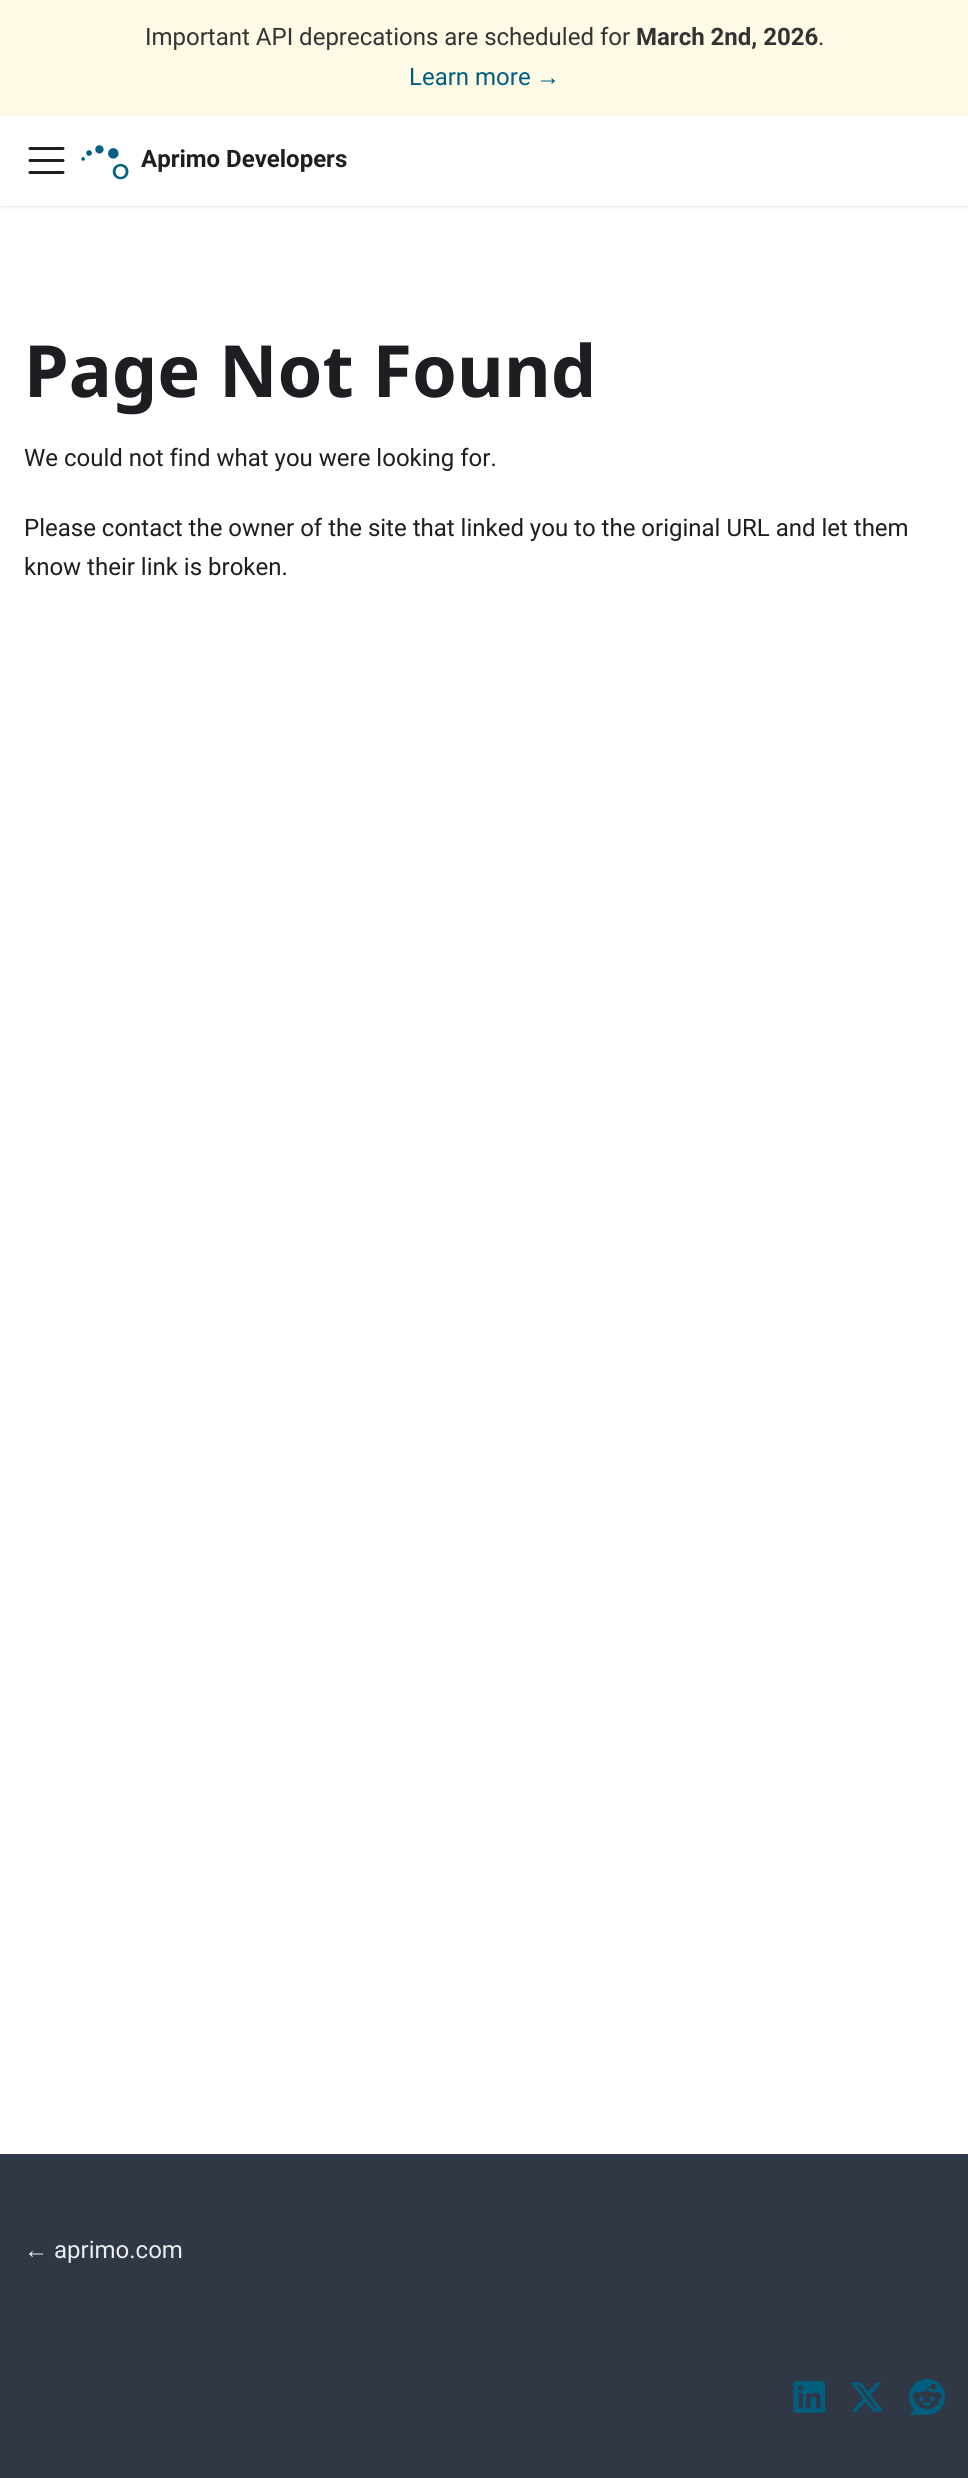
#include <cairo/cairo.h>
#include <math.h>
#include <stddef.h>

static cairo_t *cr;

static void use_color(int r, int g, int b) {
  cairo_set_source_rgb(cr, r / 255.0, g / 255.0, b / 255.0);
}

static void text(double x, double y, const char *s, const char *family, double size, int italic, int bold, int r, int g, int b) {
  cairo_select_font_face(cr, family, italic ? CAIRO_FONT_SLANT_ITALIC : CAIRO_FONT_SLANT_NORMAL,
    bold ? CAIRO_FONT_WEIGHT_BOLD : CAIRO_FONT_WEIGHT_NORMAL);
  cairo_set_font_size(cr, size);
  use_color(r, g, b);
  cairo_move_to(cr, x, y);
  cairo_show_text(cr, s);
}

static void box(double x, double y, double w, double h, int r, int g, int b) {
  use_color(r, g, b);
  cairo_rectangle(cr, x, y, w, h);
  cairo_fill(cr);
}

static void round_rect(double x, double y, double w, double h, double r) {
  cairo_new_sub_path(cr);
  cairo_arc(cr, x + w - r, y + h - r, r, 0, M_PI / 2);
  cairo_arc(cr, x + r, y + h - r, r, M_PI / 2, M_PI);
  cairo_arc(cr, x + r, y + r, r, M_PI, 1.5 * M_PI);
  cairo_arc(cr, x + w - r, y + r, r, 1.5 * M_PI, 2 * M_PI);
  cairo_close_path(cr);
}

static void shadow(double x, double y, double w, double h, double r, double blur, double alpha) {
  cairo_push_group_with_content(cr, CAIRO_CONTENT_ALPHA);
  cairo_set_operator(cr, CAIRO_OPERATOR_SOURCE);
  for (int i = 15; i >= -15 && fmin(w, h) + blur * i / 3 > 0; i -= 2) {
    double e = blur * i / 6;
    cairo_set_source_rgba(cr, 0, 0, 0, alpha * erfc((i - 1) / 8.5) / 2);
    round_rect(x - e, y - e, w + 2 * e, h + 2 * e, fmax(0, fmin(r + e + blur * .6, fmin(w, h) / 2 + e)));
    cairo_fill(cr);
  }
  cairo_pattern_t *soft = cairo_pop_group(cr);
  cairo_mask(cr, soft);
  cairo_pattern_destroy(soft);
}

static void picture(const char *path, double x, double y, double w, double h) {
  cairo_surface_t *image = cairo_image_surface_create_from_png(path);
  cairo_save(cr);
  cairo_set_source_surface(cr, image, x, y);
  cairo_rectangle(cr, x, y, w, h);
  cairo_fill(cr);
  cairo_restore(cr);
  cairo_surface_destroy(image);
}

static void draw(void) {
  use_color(255, 255, 255);
  cairo_paint(cr);
  box(0, 0, 968, 116, 255, 250, 230);
  use_color(0, 0, 0);
  shadow(0, 117, 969, 90, 0, 1.5, 0.1);
  box(0, 116, 968, 90, 255, 255, 255);
  cairo_new_path(cr);
  cairo_move_to(cr, 30, 148.5);
  cairo_line_to(cr, 63, 148.5);
  cairo_move_to(cr, 30, 160.5);
  cairo_line_to(cr, 63, 160.5);
  cairo_move_to(cr, 30, 172.5);
  cairo_line_to(cr, 63, 172.5);
  use_color(28, 30, 33);
  cairo_set_line_width(cr, 3);
  cairo_set_line_cap(cr, CAIRO_LINE_CAP_ROUND);
  cairo_stroke(cr);
  picture("img_01.png", 81, 145, 48, 35);
  box(0, 2154, 968, 324, 48, 56, 70);
  picture("img_02.png", 793, 2381, 32, 32);
  picture("img_03.png", 851, 2382, 32, 30);
  picture("img_04.png", 909, 2379, 36, 36);
  text(145, 45, "Important API deprecations are scheduled for", "Roboto", 24, 0, 0, 51, 51, 51);
  text(636, 45, "March 2nd, 2026", "Roboto", 24, 0, 1, 51, 51, 51);
  text(818, 45, ".", "Roboto", 24, 0, 0, 51, 51, 51);
  text(409, 85, "Learn more", "Roboto", 24, 0, 0, 0, 95, 127);
  text(536, 85, "→", "Liberation Sans", 24, 0, 0, 0, 95, 127);
  text(141, 167, "Aprimo Developers", "Roboto", 24, 0, 1, 28, 30, 33);
  text(24, 397, "Page Not Found", "Noto Sans", 72, 0, 1, 28, 30, 33);
  text(24, 466, "We could not find what you were looking for.", "Roboto", 24, 0, 0, 28, 30, 33);
  text(24, 536, "Please contact the owner of the site that linked you to the original URL and let them", "Roboto", 24, 0, 0, 28, 30, 33);
  text(24, 575, "know their link is broken.", "Roboto", 24, 0, 0, 28, 30, 33);
  text(24, 2258, "←", "Liberation Sans", 24, 0, 0, 235, 237, 240);
  text(54, 2258, "aprimo.com", "Roboto", 24, 0, 0, 235, 237, 240);
}

int main(void) {
  cairo_surface_t *surface = cairo_image_surface_create(CAIRO_FORMAT_RGB24, 968, 2478);
  cr = cairo_create(surface);
  cairo_font_options_t *options = cairo_font_options_create();
  cairo_font_options_set_hint_metrics(options, CAIRO_HINT_METRICS_OFF);
  cairo_font_options_set_hint_style(options, CAIRO_HINT_STYLE_NONE);
  cairo_set_font_options(cr, options);
  cairo_set_miter_limit(cr, 4);
  draw();
  cairo_surface_write_to_png(surface, "out.png");
  cairo_font_options_destroy(options);
  cairo_destroy(cr);
  cairo_surface_destroy(surface);
  return 0;
}
